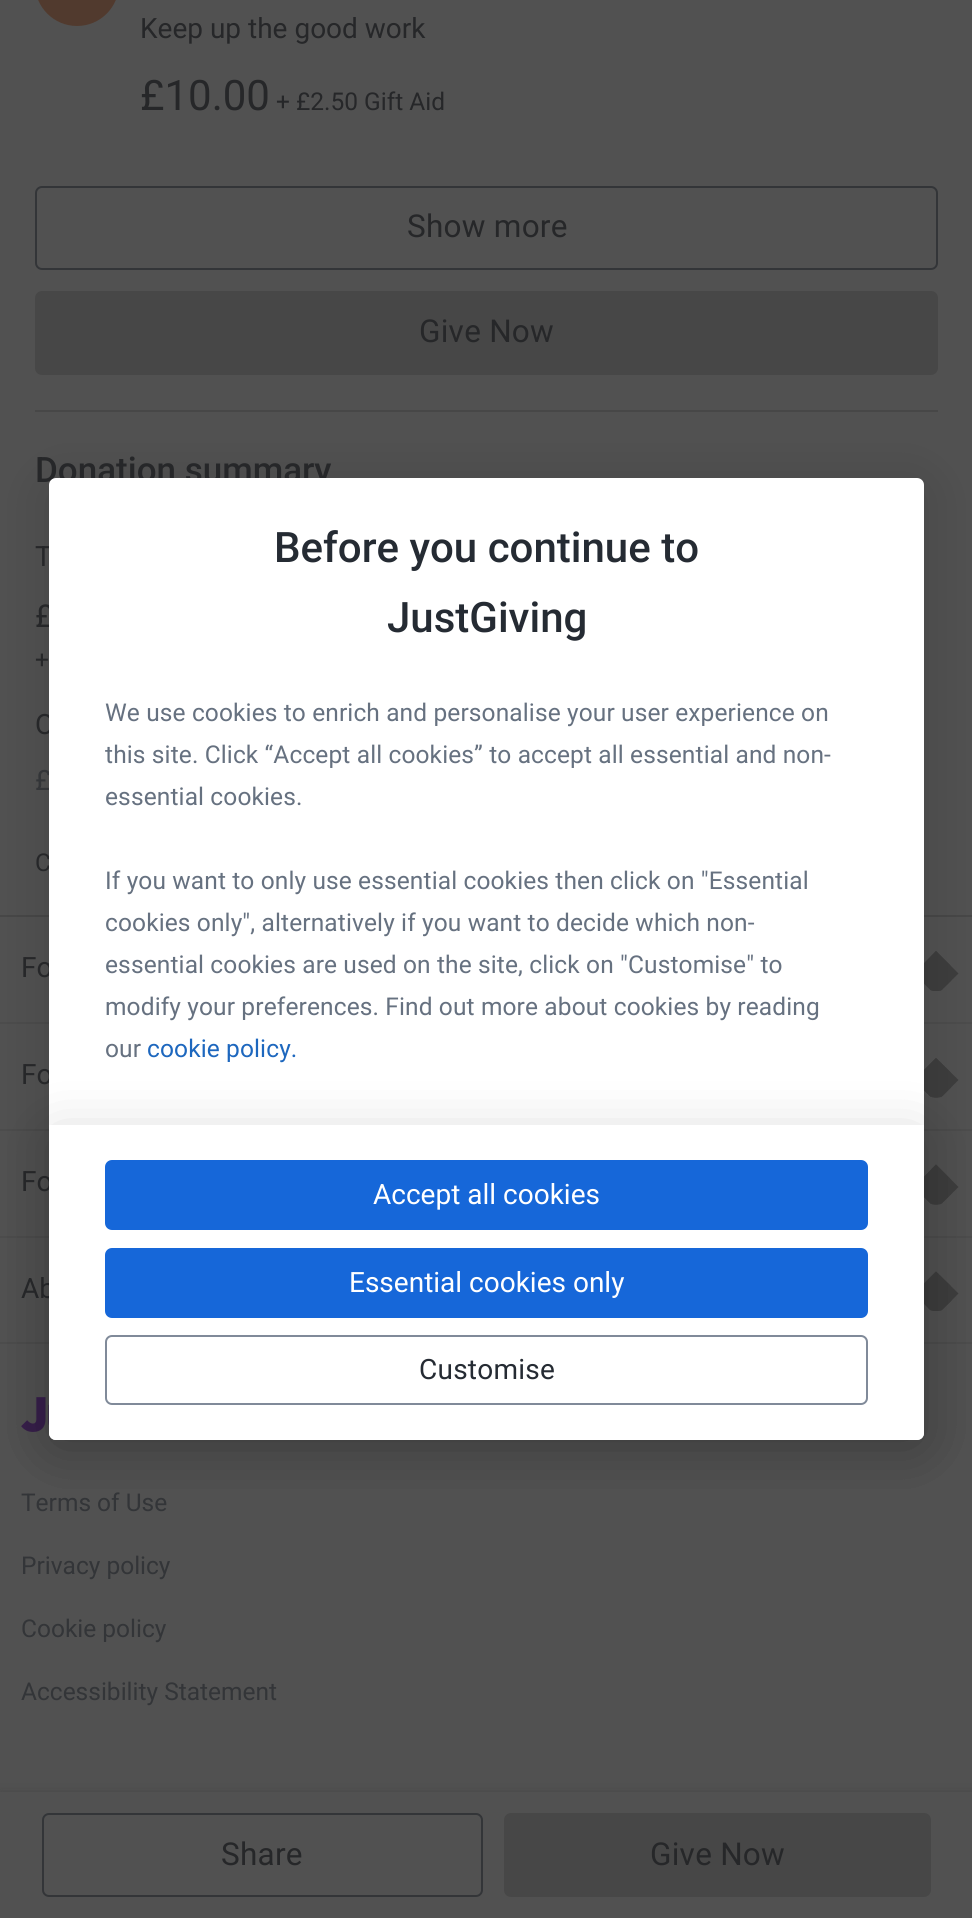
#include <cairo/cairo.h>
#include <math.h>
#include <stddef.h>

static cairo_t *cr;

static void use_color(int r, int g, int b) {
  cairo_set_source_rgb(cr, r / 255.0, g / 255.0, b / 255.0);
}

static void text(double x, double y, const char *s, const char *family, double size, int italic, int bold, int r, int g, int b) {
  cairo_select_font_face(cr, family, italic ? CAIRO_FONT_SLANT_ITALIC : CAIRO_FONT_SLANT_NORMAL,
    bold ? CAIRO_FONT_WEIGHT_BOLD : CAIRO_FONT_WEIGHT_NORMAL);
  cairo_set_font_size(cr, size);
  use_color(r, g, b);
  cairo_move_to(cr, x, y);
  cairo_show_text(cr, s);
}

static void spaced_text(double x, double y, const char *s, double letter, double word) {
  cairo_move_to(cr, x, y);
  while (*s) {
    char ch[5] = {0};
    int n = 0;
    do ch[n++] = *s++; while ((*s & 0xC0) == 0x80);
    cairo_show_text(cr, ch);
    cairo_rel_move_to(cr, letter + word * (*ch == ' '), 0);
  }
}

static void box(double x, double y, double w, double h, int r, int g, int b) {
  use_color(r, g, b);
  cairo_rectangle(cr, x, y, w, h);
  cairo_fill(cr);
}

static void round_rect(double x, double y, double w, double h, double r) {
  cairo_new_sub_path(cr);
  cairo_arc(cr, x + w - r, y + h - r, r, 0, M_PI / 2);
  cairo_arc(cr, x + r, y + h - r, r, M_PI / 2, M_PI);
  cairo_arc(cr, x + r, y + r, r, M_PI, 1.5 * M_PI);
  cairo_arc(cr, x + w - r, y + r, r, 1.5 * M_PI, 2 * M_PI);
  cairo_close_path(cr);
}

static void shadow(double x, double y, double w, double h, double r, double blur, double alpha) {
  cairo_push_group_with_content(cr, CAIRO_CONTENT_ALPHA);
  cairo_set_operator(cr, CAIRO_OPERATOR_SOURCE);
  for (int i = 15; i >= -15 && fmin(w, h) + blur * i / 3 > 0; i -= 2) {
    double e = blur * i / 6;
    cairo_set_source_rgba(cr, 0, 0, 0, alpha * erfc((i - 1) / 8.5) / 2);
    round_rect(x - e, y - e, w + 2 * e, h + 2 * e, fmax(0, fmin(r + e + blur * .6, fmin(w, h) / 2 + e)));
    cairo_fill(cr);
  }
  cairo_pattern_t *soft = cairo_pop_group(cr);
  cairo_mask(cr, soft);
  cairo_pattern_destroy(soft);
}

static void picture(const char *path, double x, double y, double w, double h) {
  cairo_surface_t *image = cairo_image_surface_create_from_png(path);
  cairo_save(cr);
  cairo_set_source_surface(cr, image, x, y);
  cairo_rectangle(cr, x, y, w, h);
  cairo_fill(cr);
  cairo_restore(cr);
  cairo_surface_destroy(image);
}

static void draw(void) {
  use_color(81, 81, 81);
  cairo_paint(cr);
  use_color(81, 58, 46);
  cairo_arc(cr, 77, -16, 42, 0, 2 * M_PI);
  cairo_fill(cr);
  round_rect(36, 187, 901, 82, 6);
  use_color(51, 53, 56);
  cairo_stroke(cr);
  use_color(71, 71, 71);
  round_rect(35, 291, 903, 84, 7);
  cairo_fill(cr);
  box(35, 410, 903, 2, 71, 71, 71);
  use_color(30, 30, 30);
  shadow(0, 1792, 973, 126, 0, 5, 0.2);
  box(0, 1792, 972, 126, 81, 81, 81);
  round_rect(43, 1814, 439, 82, 6);
  use_color(51, 53, 56);
  cairo_stroke(cr);
  use_color(71, 71, 71);
  round_rect(504, 1813, 427, 84, 7);
  cairo_fill(cr);
  box(0, 915, 972, 2, 71, 71, 71);
  box(0, 1022, 972, 2, 76, 76, 76);
  cairo_save(cr);
  cairo_new_path(cr);
  cairo_move_to(cr, 936, 951);
  cairo_line_to(cr, 958.5, 973.5);
  cairo_line_to(cr, 936, 995.5);
  cairo_line_to(cr, 914, 973.5);
  cairo_close_path(cr);
  cairo_clip(cr);
  cairo_new_path(cr);
  cairo_move_to(cr, 924.5, 963);
  cairo_line_to(cr, 935.5, 974);
  use_color(61, 61, 61);
  cairo_set_line_width(cr, 34.1);
  cairo_set_line_cap(cr, CAIRO_LINE_CAP_ROUND);
  cairo_stroke(cr);
  cairo_restore(cr);
  cairo_save(cr);
  cairo_new_path(cr);
  cairo_move_to(cr, 936, 951);
  cairo_line_to(cr, 914, 973.5);
  cairo_line_to(cr, 936, 995.5);
  cairo_line_to(cr, 958.5, 973.5);
  cairo_close_path(cr);
  cairo_clip(cr);
  cairo_new_path(cr);
  cairo_move_to(cr, 948, 963);
  cairo_line_to(cr, 937, 974);
  use_color(61, 61, 61);
  cairo_set_line_width(cr, 34.1);
  cairo_set_line_cap(cr, CAIRO_LINE_CAP_ROUND);
  cairo_stroke(cr);
  cairo_restore(cr);
  box(0, 1129, 972, 2, 76, 76, 76);
  cairo_save(cr);
  cairo_new_path(cr);
  cairo_move_to(cr, 936, 1058);
  cairo_line_to(cr, 958.5, 1080);
  cairo_line_to(cr, 936, 1102.5);
  cairo_line_to(cr, 914, 1080);
  cairo_close_path(cr);
  cairo_clip(cr);
  cairo_new_path(cr);
  cairo_move_to(cr, 924.5, 1069.5);
  cairo_line_to(cr, 935.5, 1080.5);
  use_color(61, 61, 61);
  cairo_set_line_width(cr, 34.1);
  cairo_set_line_cap(cr, CAIRO_LINE_CAP_ROUND);
  cairo_stroke(cr);
  cairo_restore(cr);
  cairo_save(cr);
  cairo_new_path(cr);
  cairo_move_to(cr, 936, 1058);
  cairo_line_to(cr, 914, 1080);
  cairo_line_to(cr, 936, 1102.5);
  cairo_line_to(cr, 958.5, 1080);
  cairo_close_path(cr);
  cairo_clip(cr);
  cairo_new_path(cr);
  cairo_move_to(cr, 948, 1069.5);
  cairo_line_to(cr, 937, 1080.5);
  use_color(61, 61, 61);
  cairo_set_line_width(cr, 34.1);
  cairo_set_line_cap(cr, CAIRO_LINE_CAP_ROUND);
  cairo_stroke(cr);
  cairo_restore(cr);
  box(0, 1236, 972, 2, 76, 76, 76);
  cairo_save(cr);
  cairo_new_path(cr);
  cairo_move_to(cr, 936, 1164.5);
  cairo_line_to(cr, 958.5, 1187);
  cairo_line_to(cr, 936, 1209);
  cairo_line_to(cr, 914, 1187);
  cairo_close_path(cr);
  cairo_clip(cr);
  cairo_new_path(cr);
  cairo_move_to(cr, 924.5, 1176.5);
  cairo_line_to(cr, 935.5, 1187.5);
  use_color(61, 61, 61);
  cairo_set_line_width(cr, 34.1);
  cairo_set_line_cap(cr, CAIRO_LINE_CAP_ROUND);
  cairo_stroke(cr);
  cairo_restore(cr);
  cairo_save(cr);
  cairo_new_path(cr);
  cairo_move_to(cr, 936, 1164.5);
  cairo_line_to(cr, 914, 1187);
  cairo_line_to(cr, 936, 1209);
  cairo_line_to(cr, 958.5, 1187);
  cairo_close_path(cr);
  cairo_clip(cr);
  cairo_new_path(cr);
  cairo_move_to(cr, 948, 1176.5);
  cairo_line_to(cr, 937, 1187.5);
  use_color(61, 61, 61);
  cairo_set_line_width(cr, 34.1);
  cairo_set_line_cap(cr, CAIRO_LINE_CAP_ROUND);
  cairo_stroke(cr);
  cairo_restore(cr);
  box(0, 1342, 972, 2, 76, 76, 76);
  cairo_save(cr);
  cairo_new_path(cr);
  cairo_move_to(cr, 936, 1271.5);
  cairo_line_to(cr, 958.5, 1293.5);
  cairo_line_to(cr, 936, 1316);
  cairo_line_to(cr, 914, 1293.5);
  cairo_close_path(cr);
  cairo_clip(cr);
  cairo_new_path(cr);
  cairo_move_to(cr, 924.5, 1283);
  cairo_line_to(cr, 935.5, 1294);
  use_color(61, 61, 61);
  cairo_set_line_width(cr, 34.1);
  cairo_set_line_cap(cr, CAIRO_LINE_CAP_ROUND);
  cairo_stroke(cr);
  cairo_restore(cr);
  cairo_save(cr);
  cairo_new_path(cr);
  cairo_move_to(cr, 936, 1271.5);
  cairo_line_to(cr, 914, 1293.5);
  cairo_line_to(cr, 936, 1316);
  cairo_line_to(cr, 958.5, 1293.5);
  cairo_close_path(cr);
  cairo_clip(cr);
  cairo_new_path(cr);
  cairo_move_to(cr, 948, 1283);
  cairo_line_to(cr, 937, 1294);
  use_color(61, 61, 61);
  cairo_set_line_width(cr, 34.1);
  cairo_set_line_cap(cr, CAIRO_LINE_CAP_ROUND);
  cairo_stroke(cr);
  cairo_restore(cr);
  picture("img_01.png", 21, 1397, 28, 35);
  use_color(0, 0, 0);
  shadow(49, 485, 875, 962, 7, 28, 0.15);
  text(140, 38, "Keep up the good work", "Roboto", 28, 0, 0, 38, 39, 41);
  text(140, 110, "£10.00", "Roboto", 42, 0, 0, 38, 39, 41);
  text(276, 110, "+ £2.50 Gift Aid", "Roboto", 24.5, 0, 0, 38, 39, 41);
  cairo_set_font_size(cr, 31.5);
  spaced_text(407, 237, "Show more", 0.25, 0);
  spaced_text(419, 342, "Give Now", 0.25, 0);
  text(35, 482, "Donation summary", "Roboto Medium", 35, 0, 0, 38, 39, 41);
  cairo_select_font_face(cr, "Roboto", CAIRO_FONT_SLANT_NORMAL, CAIRO_FONT_WEIGHT_NORMAL);
  cairo_set_font_size(cr, 28);
  spaced_text(35, 566, "T", 0.25, 0);
  cairo_set_font_size(cr, 31.5);
  spaced_text(35, 627, "£", 0.25, 0);
  cairo_set_font_size(cr, 24.5);
  spaced_text(35, 668, "+", 0.12, 0);
  cairo_set_font_size(cr, 28);
  spaced_text(35, 734, "O", 0.25, 0);
  use_color(51, 53, 56);
  spaced_text(35, 790, "£", 0.25, 0);
  cairo_set_font_size(cr, 24.5);
  use_color(38, 39, 41);
  spaced_text(35, 871, "C", 0.12, 0);
  cairo_set_font_size(cr, 31.5);
  spaced_text(221, 1865, "Share", 0.25, 0);
  spaced_text(650, 1865, "Give Now", 0.25, 0);
  text(21, 977, "Fo", "Roboto", 28, 0, 0, 38, 39, 41);
  text(21, 1084, "Fo", "Roboto", 28, 0, 0, 38, 39, 41);
  text(21, 1191, "Fo", "Roboto", 28, 0, 0, 38, 39, 41);
  text(21, 1298, "Ab", "Roboto", 28, 0, 0, 38, 39, 41);
  use_color(255, 255, 255);
  round_rect(49, 478, 875, 962, 7);
  cairo_fill(cr);
  use_color(0, 0, 0);
  shadow(49, 1132, 875, 315, 7, 28, 0.15);
  use_color(255, 255, 255);
  cairo_new_path(cr);
  cairo_move_to(cr, 49, 1125);
  cairo_line_to(cr, 924, 1125);
  cairo_line_to(cr, 924, 1433);
  cairo_curve_to(cr, 924, 1437, 921, 1440, 917, 1440);
  cairo_line_to(cr, 56, 1440);
  cairo_curve_to(cr, 52, 1440, 49, 1437, 49, 1433);
  cairo_close_path(cr);
  cairo_fill(cr);
  round_rect(106, 1336, 761, 68, 6);
  use_color(128, 138, 153);
  cairo_stroke(cr);
  use_color(37, 43, 51);
  spaced_text(419, 1379, "Customise", 0.25, 0);
  use_color(22, 103, 217);
  round_rect(105, 1248, 763, 70, 7);
  cairo_fill(cr);
  text(349, 1292, "Essential cookies only", "Roboto", 28, 0, 0, 255, 255, 255);
  use_color(22, 103, 217);
  round_rect(105, 1160, 763, 70, 7);
  cairo_fill(cr);
  text(373, 1204, "Accept all cookies", "Roboto", 28, 0, 0, 255, 255, 255);
  cairo_set_font_size(cr, 24.5);
  use_color(29, 103, 190);
  spaced_text(147, 1057, "cookie policy.", 0.12, 0);
  use_color(102, 113, 128);
  spaced_text(105, 1057, "our", 0.12, 0);
  spaced_text(105, 1015, "modify your preferences. Find out more about cookies by reading", 0.12, 0);
  spaced_text(105, 973, "essential cookies are used on the site, click on \"Customise\" to", 0.12, 0);
  spaced_text(105, 931, "cookies only\", alternatively if you want to decide which non-", 0.12, 0);
  spaced_text(105, 889, "If you want to only use essential cookies then click on \"Essential", 0.12, 0);
  spaced_text(105, 805, "essential cookies.", 0.12, 0);
  spaced_text(105, 763, "this site. Click “Accept all cookies” to accept all essential and non-", 0.12, 0);
  spaced_text(105, 721, "We use cookies to enrich and personalise your user experience on", 0.12, 0);
  text(387, 632, "JustGiving", "Roboto Medium", 42, 0, 0, 37, 43, 51);
  text(274, 562, "Before you continue to", "Roboto Medium", 42, 0, 0, 37, 43, 51);
  text(21, 1511, "Terms of Use", "Roboto", 24.5, 0, 0, 51, 53, 56);
  text(21, 1574, "Privacy policy", "Roboto", 24.5, 0, 0, 51, 53, 56);
  text(21, 1637, "Cookie policy", "Roboto", 24.5, 0, 0, 51, 53, 56);
  text(21, 1700, "Accessibility Statement", "Roboto", 24.5, 0, 0, 51, 53, 56);
}

int main(void) {
  cairo_surface_t *surface = cairo_image_surface_create(CAIRO_FORMAT_RGB24, 972, 1918);
  cr = cairo_create(surface);
  cairo_font_options_t *options = cairo_font_options_create();
  cairo_font_options_set_hint_metrics(options, CAIRO_HINT_METRICS_OFF);
  cairo_font_options_set_hint_style(options, CAIRO_HINT_STYLE_NONE);
  cairo_set_font_options(cr, options);
  cairo_set_miter_limit(cr, 4);
  draw();
  cairo_surface_write_to_png(surface, "out.png");
  cairo_font_options_destroy(options);
  cairo_destroy(cr);
  cairo_surface_destroy(surface);
  return 0;
}
